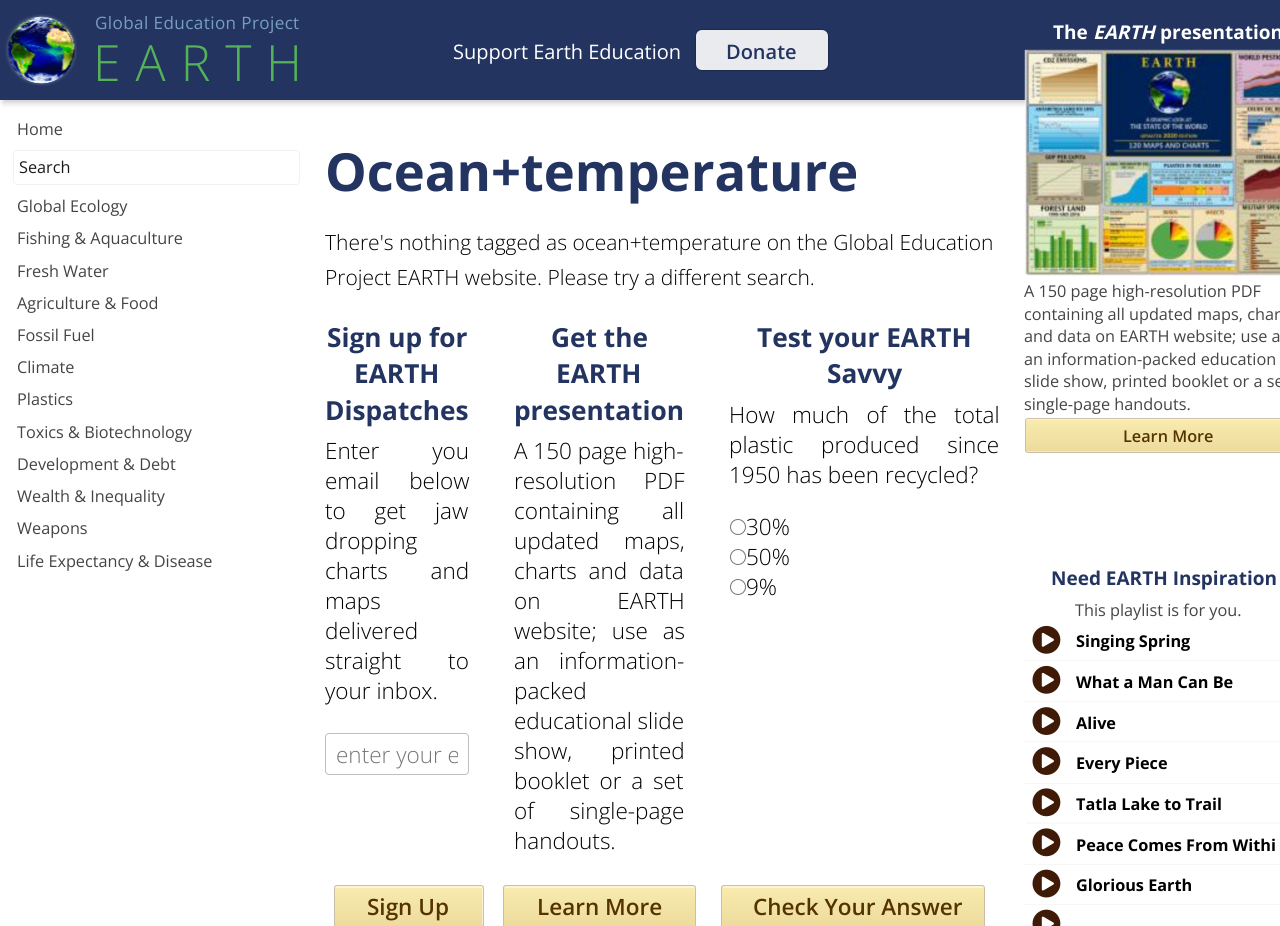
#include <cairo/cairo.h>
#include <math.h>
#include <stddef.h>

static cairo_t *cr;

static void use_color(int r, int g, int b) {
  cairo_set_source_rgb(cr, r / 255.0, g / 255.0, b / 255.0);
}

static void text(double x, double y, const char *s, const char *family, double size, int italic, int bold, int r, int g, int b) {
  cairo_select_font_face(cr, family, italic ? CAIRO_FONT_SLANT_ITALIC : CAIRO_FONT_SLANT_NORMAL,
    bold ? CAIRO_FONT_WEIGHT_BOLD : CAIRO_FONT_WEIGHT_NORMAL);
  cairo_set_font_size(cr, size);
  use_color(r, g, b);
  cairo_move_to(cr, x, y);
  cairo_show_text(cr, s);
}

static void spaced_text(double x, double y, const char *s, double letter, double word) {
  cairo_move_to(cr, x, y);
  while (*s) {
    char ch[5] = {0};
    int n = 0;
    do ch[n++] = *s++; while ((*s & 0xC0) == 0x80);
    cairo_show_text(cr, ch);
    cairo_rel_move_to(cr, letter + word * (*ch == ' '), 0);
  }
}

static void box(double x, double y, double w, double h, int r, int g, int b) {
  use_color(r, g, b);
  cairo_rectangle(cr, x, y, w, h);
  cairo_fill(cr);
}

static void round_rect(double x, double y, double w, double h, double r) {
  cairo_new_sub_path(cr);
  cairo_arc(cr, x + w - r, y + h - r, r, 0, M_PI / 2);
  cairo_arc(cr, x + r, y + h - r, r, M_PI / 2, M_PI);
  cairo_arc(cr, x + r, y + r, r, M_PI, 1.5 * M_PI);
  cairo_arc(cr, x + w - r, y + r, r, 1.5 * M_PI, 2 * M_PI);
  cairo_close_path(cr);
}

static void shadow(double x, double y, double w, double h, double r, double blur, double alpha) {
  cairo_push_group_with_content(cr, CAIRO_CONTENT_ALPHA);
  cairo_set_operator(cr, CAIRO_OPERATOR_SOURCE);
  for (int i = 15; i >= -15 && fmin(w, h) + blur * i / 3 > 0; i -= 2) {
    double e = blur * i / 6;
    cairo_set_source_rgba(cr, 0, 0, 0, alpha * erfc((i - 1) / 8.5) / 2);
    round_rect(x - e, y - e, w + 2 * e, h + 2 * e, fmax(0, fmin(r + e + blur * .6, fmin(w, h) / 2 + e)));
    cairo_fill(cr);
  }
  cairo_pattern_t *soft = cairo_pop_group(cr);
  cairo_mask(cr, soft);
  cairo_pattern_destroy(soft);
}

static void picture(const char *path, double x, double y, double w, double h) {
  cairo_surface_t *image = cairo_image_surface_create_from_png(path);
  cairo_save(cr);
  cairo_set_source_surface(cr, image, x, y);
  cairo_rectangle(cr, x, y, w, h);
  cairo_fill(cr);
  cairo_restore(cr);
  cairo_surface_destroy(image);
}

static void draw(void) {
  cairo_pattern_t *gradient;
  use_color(255, 255, 255);
  cairo_paint(cr);
  use_color(0, 0, 0);
  shadow(3, 3, 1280, 100, 0, 3, 0.2);
  box(0, 0, 1280, 100, 35, 52, 97);
  picture("img_01.png", 5, 14, 72, 72);
  use_color(0, 0, 0);
  shadow(696, 30, 132, 40, 6, 1, 0.5);
  use_color(233, 235, 239);
  round_rect(696, 30, 132, 40, 6);
  cairo_fill(cr);
  round_rect(13.5, 150.5, 286, 34, 3.5);
  use_color(242, 242, 242);
  cairo_set_line_width(cr, 1);
  cairo_stroke(cr);
  round_rect(325.5, 733.5, 143, 41, 3.5);
  use_color(191, 191, 191);
  cairo_stroke(cr);
  cairo_save(cr);
  round_rect(334, 885, 150, 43, 3);
  cairo_clip(cr);
  gradient = cairo_pattern_create_linear(409, 886, 409, 926);
  cairo_pattern_add_color_stop_rgba(gradient, 0, 0.973, 0.925, 0.682, 1);
  cairo_pattern_add_color_stop_rgba(gradient, 1, 0.929, 0.859, 0.616, 1);
  cairo_set_source(cr, gradient);
  cairo_pattern_destroy(gradient);
  cairo_rectangle(cr, 334, 886, 150, 40);
  cairo_fill(cr);
  cairo_restore(cr);
  cairo_set_source_rgba(cr, 1, 1, 1, 0.5);
  cairo_new_path(cr);
  cairo_move_to(cr, 337, 888);
  cairo_line_to(cr, 481, 888);
  cairo_curve_to(cr, 482, 888, 482, 888, 482, 889);
  cairo_line_to(cr, 482, 926);
  cairo_curve_to(cr, 483, 925, 483, 925, 483, 924);
  cairo_line_to(cr, 483, 888);
  cairo_curve_to(cr, 483, 887, 482, 886, 481, 886);
  cairo_line_to(cr, 337, 886);
  cairo_curve_to(cr, 336, 886, 335, 887, 335, 888);
  cairo_line_to(cr, 335, 889);
  cairo_curve_to(cr, 335, 888, 336, 888, 337, 888);
  cairo_close_path(cr);
  cairo_fill(cr);
  round_rect(334.5, 885.5, 149, 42, 2.5);
  use_color(204, 191, 170);
  cairo_stroke(cr);
  cairo_save(cr);
  round_rect(503, 885, 193, 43, 3);
  cairo_clip(cr);
  gradient = cairo_pattern_create_linear(599, 886, 599, 926);
  cairo_pattern_add_color_stop_rgba(gradient, 0, 0.973, 0.925, 0.682, 1);
  cairo_pattern_add_color_stop_rgba(gradient, 1, 0.929, 0.859, 0.616, 1);
  cairo_set_source(cr, gradient);
  cairo_pattern_destroy(gradient);
  cairo_rectangle(cr, 503, 886, 193, 40);
  cairo_fill(cr);
  cairo_restore(cr);
  use_color(251, 245, 214);
  cairo_new_path(cr);
  cairo_move_to(cr, 506, 888);
  cairo_line_to(cr, 693, 888);
  cairo_line_to(cr, 695, 889);
  cairo_line_to(cr, 695, 888);
  cairo_curve_to(cr, 695, 887, 694, 886, 693, 886);
  cairo_line_to(cr, 506, 886);
  cairo_curve_to(cr, 505, 886, 504, 887, 504, 888);
  cairo_line_to(cr, 504, 889);
  cairo_curve_to(cr, 504, 888, 505, 888, 506, 888);
  cairo_close_path(cr);
  cairo_fill(cr);
  round_rect(503.5, 885.5, 192, 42, 2.5);
  use_color(204, 191, 170);
  cairo_stroke(cr);
  cairo_arc(cr, 738, 527, 7.5, 0, 2 * M_PI);
  use_color(118, 118, 118);
  cairo_stroke(cr);
  cairo_arc(cr, 738, 557, 7.5, 0, 2 * M_PI);
  cairo_stroke(cr);
  cairo_arc(cr, 738, 587, 7.5, 0, 2 * M_PI);
  cairo_stroke(cr);
  cairo_save(cr);
  round_rect(721, 885, 264, 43, 3);
  cairo_clip(cr);
  gradient = cairo_pattern_create_linear(853, 886, 853, 926);
  cairo_pattern_add_color_stop_rgba(gradient, 0, 0.973, 0.925, 0.682, 1);
  cairo_pattern_add_color_stop_rgba(gradient, 1, 0.929, 0.859, 0.616, 1);
  cairo_set_source(cr, gradient);
  cairo_pattern_destroy(gradient);
  cairo_rectangle(cr, 721, 886, 264, 40);
  cairo_fill(cr);
  cairo_restore(cr);
  use_color(252, 245, 214);
  cairo_new_path(cr);
  cairo_move_to(cr, 724, 888);
  cairo_line_to(cr, 982, 888);
  cairo_curve_to(cr, 983, 888, 984, 888, 984, 889);
  cairo_curve_to(cr, 984, 888, 984, 886, 982, 886);
  cairo_line_to(cr, 725, 886);
  cairo_curve_to(cr, 724, 886, 723, 887, 723, 888);
  cairo_close_path(cr);
  cairo_fill(cr);
  round_rect(721.5, 885.5, 263, 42, 2.5);
  use_color(204, 191, 170);
  cairo_stroke(cr);
  picture("img_02.png", 1024, 49, 256, 227);
  cairo_save(cr);
  round_rect(1025, 418, 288, 35, 3);
  cairo_clip(cr);
  gradient = cairo_pattern_create_linear(1169, 419, 1169, 451);
  cairo_pattern_add_color_stop_rgba(gradient, 0, 0.973, 0.925, 0.682, 1);
  cairo_pattern_add_color_stop_rgba(gradient, 1, 0.929, 0.859, 0.616, 1);
  cairo_set_source(cr, gradient);
  cairo_pattern_destroy(gradient);
  cairo_rectangle(cr, 1025, 419, 255, 32);
  cairo_fill(cr);
  gradient = cairo_pattern_create_linear(1169, 451, 1169, 484);
  cairo_pattern_add_color_stop_rgba(gradient, 0, 0.973, 0.925, 0.682, 1);
  cairo_pattern_add_color_stop_rgba(gradient, 1, 0.929, 0.859, 0.616, 1);
  cairo_set_source(cr, gradient);
  cairo_pattern_destroy(gradient);
  cairo_rectangle(cr, 1025, 451, 255, 2);
  cairo_fill(cr);
  cairo_restore(cr);
  use_color(251, 245, 214);
  cairo_new_path(cr);
  cairo_move_to(cr, 1028, 420);
  cairo_line_to(cr, 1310, 420);
  cairo_line_to(cr, 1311, 422);
  cairo_curve_to(cr, 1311, 421, 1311, 419, 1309, 419);
  cairo_line_to(cr, 1028, 419);
  cairo_curve_to(cr, 1026, 419, 1026, 421, 1026, 422);
  cairo_curve_to(cr, 1026, 421, 1027, 420, 1028, 420);
  cairo_close_path(cr);
  cairo_fill(cr);
  round_rect(1025.5, 418.5, 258, 34, 2.5);
  use_color(204, 191, 170);
  cairo_stroke(cr);
  box(1025, 660, 255, 1, 247, 247, 247);
  picture("img_03.png", 1032, 625, 29, 29);
  box(1025, 701, 255, 1, 247, 247, 247);
  picture("img_03.png", 1032, 665, 29, 29);
  box(1025, 741, 255, 1, 247, 247, 247);
  picture("img_04.png", 1032, 707, 29, 28);
  box(1025, 783, 255, 1, 247, 247, 247);
  picture("img_04.png", 1032, 747, 29, 28);
  box(1026, 822, 254, 2, 250, 250, 250);
  picture("img_05.png", 1032, 788, 29, 29);
  box(1025, 864, 255, 1, 247, 247, 247);
  picture("img_05.png", 1032, 828, 29, 29);
  box(1025, 904, 255, 1, 247, 247, 247);
  picture("img_06.png", 1032, 869, 29, 29);
  picture("img_07.png", 1032, 909, 29, 17);
  cairo_select_font_face(cr, "Open Sans", CAIRO_FONT_SLANT_NORMAL, CAIRO_FONT_WEIGHT_NORMAL);
  cairo_set_font_size(cr, 17.1);
  use_color(119, 158, 188);
  spaced_text(95, 29, "Global Education Projec", 0.4, 0);
  text(293, 29, "t", "Open Sans", 17.1, 0, 0, 119, 158, 188);
  cairo_select_font_face(cr, "Open Sans Light", CAIRO_FONT_SLANT_NORMAL, CAIRO_FONT_WEIGHT_NORMAL);
  cairo_set_font_size(cr, 50);
  use_color(85, 178, 87);
  spaced_text(93, 81, "EART", 15, 0);
  text(266, 81, "H", "Open Sans Light", 50, 0, 0, 85, 178, 87);
  text(453, 59, "Support Earth Education", "Open Sans", 20, 0, 0, 255, 255, 255);
  text(726, 59, "Donate", "Open Sans SemiBold", 20, 0, 0, 35, 52, 97);
  text(17, 135, "Home", "Open Sans", 16.25, 0, 0, 68, 68, 68);
  text(19, 173, "Search", "Open Sans", 16.25, 0, 0, 26, 26, 26);
  text(17, 212, "Global Ecology", "Open Sans", 16.25, 0, 0, 68, 68, 68);
  text(17, 244, "Fishing & Aquaculture", "Open Sans", 16.25, 0, 0, 68, 68, 68);
  text(17, 277, "Fresh Water", "Open Sans", 16.25, 0, 0, 68, 68, 68);
  text(17, 309, "Agriculture & Food", "Open Sans", 16.25, 0, 0, 68, 68, 68);
  text(17, 341, "Fossil Fuel", "Open Sans", 16.25, 0, 0, 68, 68, 68);
  text(17, 373, "Climate", "Open Sans", 16.25, 0, 0, 68, 68, 68);
  text(17, 405, "Plastics", "Open Sans", 16.25, 0, 0, 68, 68, 68);
  text(17, 438, "Toxics & Biotechnology", "Open Sans", 16.25, 0, 0, 68, 68, 68);
  text(17, 470, "Development & Debt", "Open Sans", 16.25, 0, 0, 68, 68, 68);
  text(17, 502, "Wealth & Inequality", "Open Sans", 16.25, 0, 0, 68, 68, 68);
  text(17, 534, "Weapons", "Open Sans", 16.25, 0, 0, 68, 68, 68);
  text(17, 567, "Life Expectancy & Disease", "Open Sans", 16.25, 0, 0, 68, 68, 68);
  text(325, 191, "Ocean+temperature", "Open Sans", 52.5, 0, 1, 35, 52, 97);
  text(325, 250, "There's nothing tagged as ocean+temperature on the Global Education", "Open Sans Light", 21, 0, 0, 0, 0, 0);
  text(325, 285, "Project EARTH website. Please try a different search.", "Open Sans Light", 21, 0, 0, 0, 0, 0);
  text(327, 347, "Sign up for", "Open Sans", 26.25, 0, 1, 35, 52, 97);
  text(354, 383, "EARTH", "Open Sans", 26.25, 0, 1, 35, 52, 97);
  text(325, 420, "Dispatches", "Open Sans", 26.25, 0, 1, 35, 52, 97);
  cairo_select_font_face(cr, "Open Sans Light", CAIRO_FONT_SLANT_NORMAL, CAIRO_FONT_WEIGHT_NORMAL);
  cairo_set_font_size(cr, 22.5);
  use_color(0, 0, 0);
  spaced_text(325, 459, "Enter you", 0, 47);
  spaced_text(325, 489, "email below", 0, 24);
  spaced_text(325, 519, "to get jaw", 0, 23);
  text(325, 549, "dropping", "Open Sans Light", 22.5, 0, 0, 0, 0, 0);
  spaced_text(325, 579, "charts and", 0, 37);
  text(325, 609, "maps", "Open Sans Light", 22.5, 0, 0, 0, 0, 0);
  text(325, 639, "delivered", "Open Sans Light", 22.5, 0, 0, 0, 0, 0);
  spaced_text(325, 669, "straight to", 0, 41);
  text(325, 699, "your inbox.", "Open Sans Light", 22.5, 0, 0, 0, 0, 0);
  cairo_save(cr);
  cairo_rectangle(cr, 336, 739, 122, 30);
  cairo_clip(cr);
  text(336, 763, "enter your e", "Open Sans Light", 22.5, 0, 0, 117, 117, 117);
  cairo_restore(cr);
  text(367, 915, "Sign Up", "Open Sans SemiBold", 22.5, 0, 0, 85, 51, 0);
  text(551, 347, "Get the", "Open Sans", 26.25, 0, 1, 35, 52, 97);
  text(556, 383, "EARTH", "Open Sans", 26.25, 0, 1, 35, 52, 97);
  text(514, 420, "presentation", "Open Sans", 26.25, 0, 1, 35, 52, 97);
  text(514, 459, "A 150 page high-", "Open Sans Light", 22.5, 0, 0, 0, 0, 0);
  spaced_text(514, 489, "resolution PDF", 0, 22);
  spaced_text(514, 519, "containing all", 0, 37);
  spaced_text(514, 549, "updated maps,", 0, 19);
  spaced_text(514, 579, "charts and data", 0, 6);
  spaced_text(514, 609, "on EARTH", 0, 71);
  spaced_text(514, 639, "website; use as", 0, 9);
  spaced_text(514, 669, "an information-", 0, 14);
  text(514, 699, "packed", "Open Sans Light", 22.5, 0, 0, 0, 0, 0);
  text(514, 729, "educational slide", "Open Sans Light", 22.5, 0, 0, 0, 0, 0);
  spaced_text(514, 759, "show, printed", 0, 33);
  spaced_text(514, 789, "booklet or a set", 0, 4);
  spaced_text(514, 819, "of single-page", 0, 30);
  text(514, 849, "handouts.", "Open Sans Light", 22.5, 0, 0, 0, 0, 0);
  text(537, 915, "Learn More", "Open Sans SemiBold", 22.5, 0, 0, 85, 51, 0);
  text(757, 347, "Test your EARTH", "Open Sans", 26.25, 0, 1, 35, 52, 97);
  text(827, 383, "Savvy", "Open Sans", 26.25, 0, 1, 35, 52, 97);
  cairo_select_font_face(cr, "Open Sans Light", CAIRO_FONT_SLANT_NORMAL, CAIRO_FONT_WEIGHT_NORMAL);
  cairo_set_font_size(cr, 22.5);
  use_color(0, 0, 0);
  spaced_text(729, 423, "How much of the total", 0, 11.5);
  spaced_text(729, 453, "plastic produced since", 0, 22);
  text(729, 483, "1950 has been recycled?", "Open Sans Light", 22.5, 0, 0, 0, 0, 0);
  text(746, 535, "30%", "Open Sans Light", 22.5, 0, 0, 0, 0, 0);
  text(746, 565, "50%", "Open Sans Light", 22.5, 0, 0, 0, 0, 0);
  text(746, 595, "9%", "Open Sans Light", 22.5, 0, 0, 0, 0, 0);
  text(753, 915, "Check Your Answer", "Open Sans SemiBold", 22.5, 0, 0, 85, 51, 0);
  text(1053, 39, "The", "Open Sans", 19, 0, 1, 255, 255, 255);
  text(1093, 39, "EARTH", "Open Sans", 19, 1, 1, 255, 255, 255);
  text(1160, 39, "presentation", "Open Sans", 19, 0, 1, 255, 255, 255);
  text(1024, 297, "A 150 page high-resolution PDF", "Open Sans", 16.25, 0, 0, 68, 68, 68);
  text(1024, 320, "containing all updated maps, char", "Open Sans", 16.25, 0, 0, 68, 68, 68);
  text(1024, 342, "and data on EARTH website; use a", "Open Sans", 16.25, 0, 0, 68, 68, 68);
  text(1024, 365, "an information-packed education", "Open Sans", 16.25, 0, 0, 68, 68, 68);
  text(1024, 387, "slide show, printed booklet or a se", "Open Sans", 16.25, 0, 0, 68, 68, 68);
  text(1024, 410, "single-page handouts.", "Open Sans", 16.25, 0, 0, 68, 68, 68);
  text(1123, 442, "Learn More", "Open Sans SemiBold", 16.25, 0, 0, 85, 51, 0);
  text(1051, 585, "Need EARTH Inspiration", "Open Sans", 19, 0, 1, 35, 52, 97);
  text(1075, 616, "This playlist is for you.", "Open Sans", 16.25, 0, 0, 68, 68, 68);
  text(1076, 647, "Singing Spring", "Open Sans", 16.25, 0, 1, 0, 0, 0);
  text(1076, 688, "What a Man Can Be", "Open Sans", 16.25, 0, 1, 0, 0, 0);
  text(1076, 729, "Alive", "Open Sans", 16.25, 0, 1, 0, 0, 0);
  text(1076, 769, "Every Piece", "Open Sans", 16.25, 0, 1, 0, 0, 0);
  text(1076, 810, "Tatla Lake to Trail", "Open Sans", 16.25, 0, 1, 0, 0, 0);
  text(1076, 851, "Peace Comes From Withi", "Open Sans", 16.25, 0, 1, 0, 0, 0);
  text(1076, 891, "Glorious Earth", "Open Sans", 16.25, 0, 1, 0, 0, 0);
}

int main(void) {
  cairo_surface_t *surface = cairo_image_surface_create(CAIRO_FORMAT_RGB24, 1280, 926);
  cr = cairo_create(surface);
  cairo_font_options_t *options = cairo_font_options_create();
  cairo_font_options_set_hint_metrics(options, CAIRO_HINT_METRICS_OFF);
  cairo_font_options_set_hint_style(options, CAIRO_HINT_STYLE_NONE);
  cairo_set_font_options(cr, options);
  cairo_set_miter_limit(cr, 4);
  draw();
  cairo_surface_write_to_png(surface, "out.png");
  cairo_font_options_destroy(options);
  cairo_destroy(cr);
  cairo_surface_destroy(surface);
  return 0;
}
